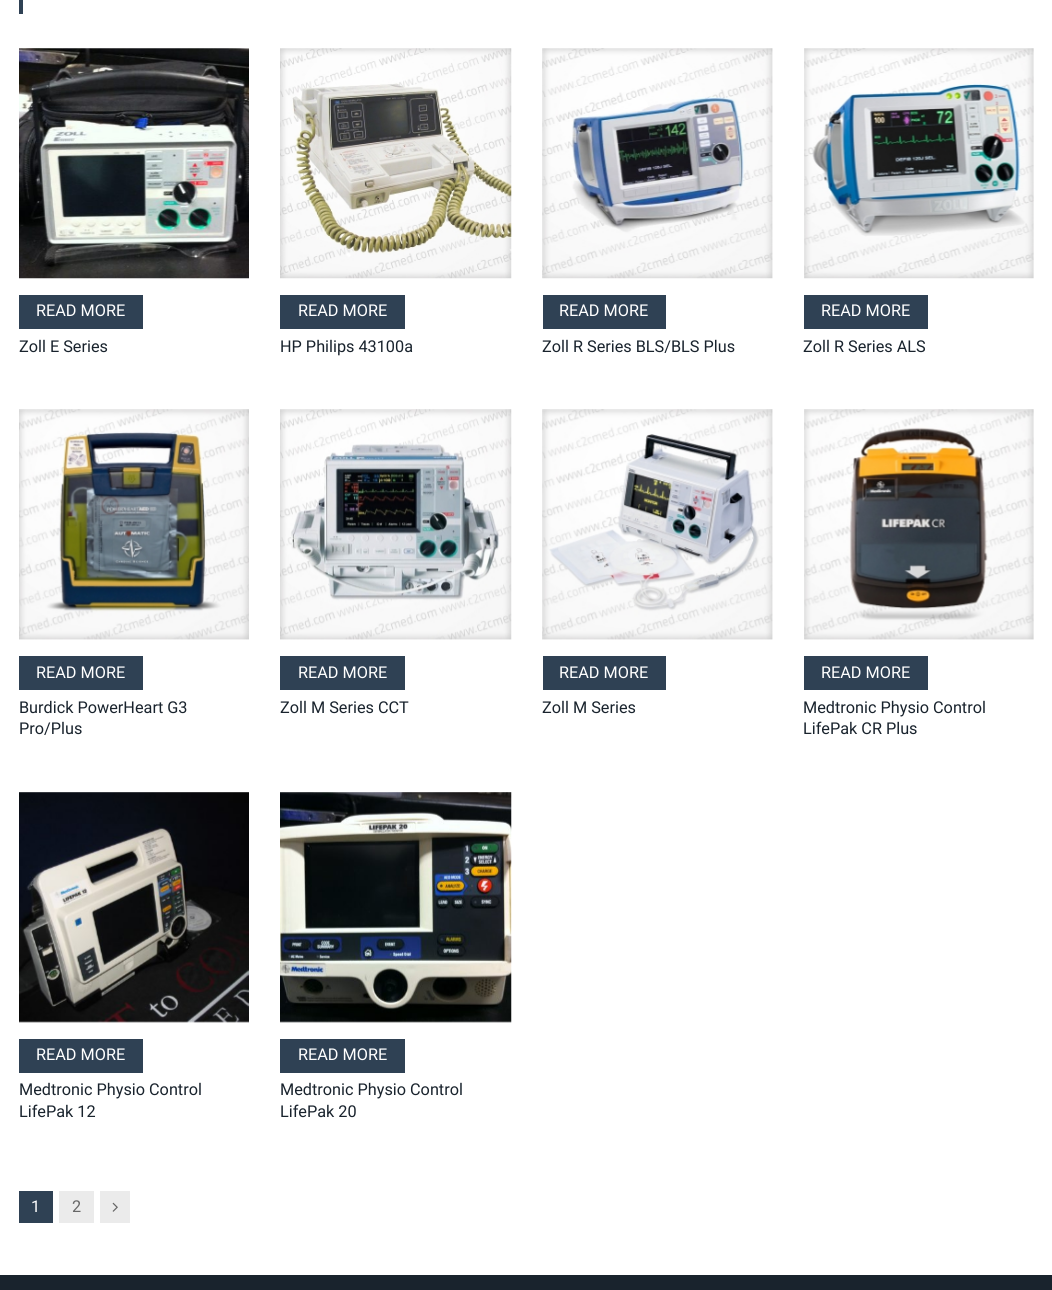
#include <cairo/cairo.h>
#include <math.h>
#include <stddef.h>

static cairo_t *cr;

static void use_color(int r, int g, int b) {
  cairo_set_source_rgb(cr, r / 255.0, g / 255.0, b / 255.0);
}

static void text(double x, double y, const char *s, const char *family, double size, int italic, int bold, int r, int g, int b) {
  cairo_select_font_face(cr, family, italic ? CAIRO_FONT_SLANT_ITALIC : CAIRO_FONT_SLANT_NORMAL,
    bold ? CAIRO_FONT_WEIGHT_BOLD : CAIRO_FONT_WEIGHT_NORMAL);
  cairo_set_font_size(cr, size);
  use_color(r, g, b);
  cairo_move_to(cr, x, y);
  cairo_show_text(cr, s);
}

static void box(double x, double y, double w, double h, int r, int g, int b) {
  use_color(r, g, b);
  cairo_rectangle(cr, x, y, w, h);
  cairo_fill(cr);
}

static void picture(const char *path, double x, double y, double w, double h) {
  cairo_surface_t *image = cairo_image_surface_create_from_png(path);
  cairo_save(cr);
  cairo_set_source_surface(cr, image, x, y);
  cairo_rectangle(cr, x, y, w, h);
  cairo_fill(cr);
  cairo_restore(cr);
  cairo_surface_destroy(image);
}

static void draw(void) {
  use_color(255, 255, 255);
  cairo_paint(cr);
  box(19, 0, 4, 14, 47, 65, 84);
  picture("img_01.png", 19, 48, 230, 231);
  box(19, 295, 124, 34, 47, 65, 84);
  picture("img_02.png", 280, 48, 232, 231);
  box(280, 295, 125, 34, 47, 65, 84);
  picture("img_03.png", 542, 48, 231, 231);
  box(543, 295, 123, 34, 47, 65, 84);
  picture("img_04.png", 804, 48, 230, 231);
  box(804, 295, 124, 34, 47, 65, 84);
  picture("img_05.png", 19, 409, 230, 231);
  box(19, 656, 124, 34, 47, 65, 84);
  picture("img_06.png", 280, 409, 232, 231);
  box(280, 656, 125, 34, 47, 65, 84);
  picture("img_07.png", 542, 409, 231, 231);
  box(543, 656, 123, 34, 47, 65, 84);
  picture("img_08.png", 804, 409, 230, 231);
  box(804, 656, 124, 34, 47, 65, 84);
  picture("img_09.png", 19, 792, 230, 231);
  box(19, 1039, 124, 34, 47, 65, 84);
  picture("img_10.png", 280, 792, 232, 231);
  box(280, 1039, 125, 34, 47, 65, 84);
  box(19, 1191, 34, 32, 47, 65, 84);
  box(59, 1191, 35, 32, 235, 235, 235);
  box(100, 1191, 30, 32, 235, 235, 235);
  picture("img_11.png", 112, 1202, 6, 10);
  box(0, 1275, 1052, 15, 25, 35, 45);
  text(36, 316, "READ MORE", "Roboto", 16.25, 0, 0, 255, 255, 255);
  text(19, 352, "Zoll E Series", "Roboto", 16.25, 0, 0, 25, 35, 45);
  text(298, 316, "READ MORE", "Roboto", 16.25, 0, 0, 255, 255, 255);
  text(280, 352, "HP Philips 43100a", "Roboto", 16.25, 0, 0, 25, 35, 45);
  text(559, 316, "READ MORE", "Roboto", 16.25, 0, 0, 255, 255, 255);
  text(542, 352, "Zoll R Series BLS/BLS Plus", "Roboto", 16.25, 0, 0, 25, 35, 45);
  text(821, 316, "READ MORE", "Roboto", 16.25, 0, 0, 255, 255, 255);
  text(803, 352, "Zoll R Series ALS", "Roboto", 16.25, 0, 0, 25, 35, 45);
  text(36, 678, "READ MORE", "Roboto", 16.25, 0, 0, 255, 255, 255);
  text(19, 713, "Burdick PowerHeart G3", "Roboto", 16.25, 0, 0, 25, 35, 45);
  text(19, 734, "Pro/Plus", "Roboto", 16.25, 0, 0, 25, 35, 45);
  text(298, 678, "READ MORE", "Roboto", 16.25, 0, 0, 255, 255, 255);
  text(280, 713, "Zoll M Series CCT", "Roboto", 16.25, 0, 0, 25, 35, 45);
  text(559, 678, "READ MORE", "Roboto", 16.25, 0, 0, 255, 255, 255);
  text(542, 713, "Zoll M Series", "Roboto", 16.25, 0, 0, 25, 35, 45);
  text(821, 678, "READ MORE", "Roboto", 16.25, 0, 0, 255, 255, 255);
  text(803, 713, "Medtronic Physio Control", "Roboto", 16.25, 0, 0, 25, 35, 45);
  text(803, 734, "LifePak CR Plus", "Roboto", 16.25, 0, 0, 25, 35, 45);
  text(36, 1060, "READ MORE", "Roboto", 16.25, 0, 0, 255, 255, 255);
  text(19, 1095, "Medtronic Physio Control", "Roboto", 16.25, 0, 0, 25, 35, 45);
  text(19, 1117, "LifePak 12", "Roboto", 16.25, 0, 0, 25, 35, 45);
  text(298, 1060, "READ MORE", "Roboto", 16.25, 0, 0, 255, 255, 255);
  text(280, 1095, "Medtronic Physio Control", "Roboto", 16.25, 0, 0, 25, 35, 45);
  text(280, 1117, "LifePak 20", "Roboto", 16.25, 0, 0, 25, 35, 45);
  text(31, 1212, "1", "Roboto", 16.25, 0, 0, 255, 255, 255);
  text(72, 1212, "2", "Roboto", 16.25, 0, 0, 103, 103, 103);
}

int main(void) {
  cairo_surface_t *surface = cairo_image_surface_create(CAIRO_FORMAT_RGB24, 1052, 1290);
  cr = cairo_create(surface);
  cairo_font_options_t *options = cairo_font_options_create();
  cairo_font_options_set_hint_metrics(options, CAIRO_HINT_METRICS_OFF);
  cairo_font_options_set_hint_style(options, CAIRO_HINT_STYLE_NONE);
  cairo_set_font_options(cr, options);
  cairo_set_miter_limit(cr, 4);
  draw();
  cairo_surface_write_to_png(surface, "out.png");
  cairo_font_options_destroy(options);
  cairo_destroy(cr);
  cairo_surface_destroy(surface);
  return 0;
}
